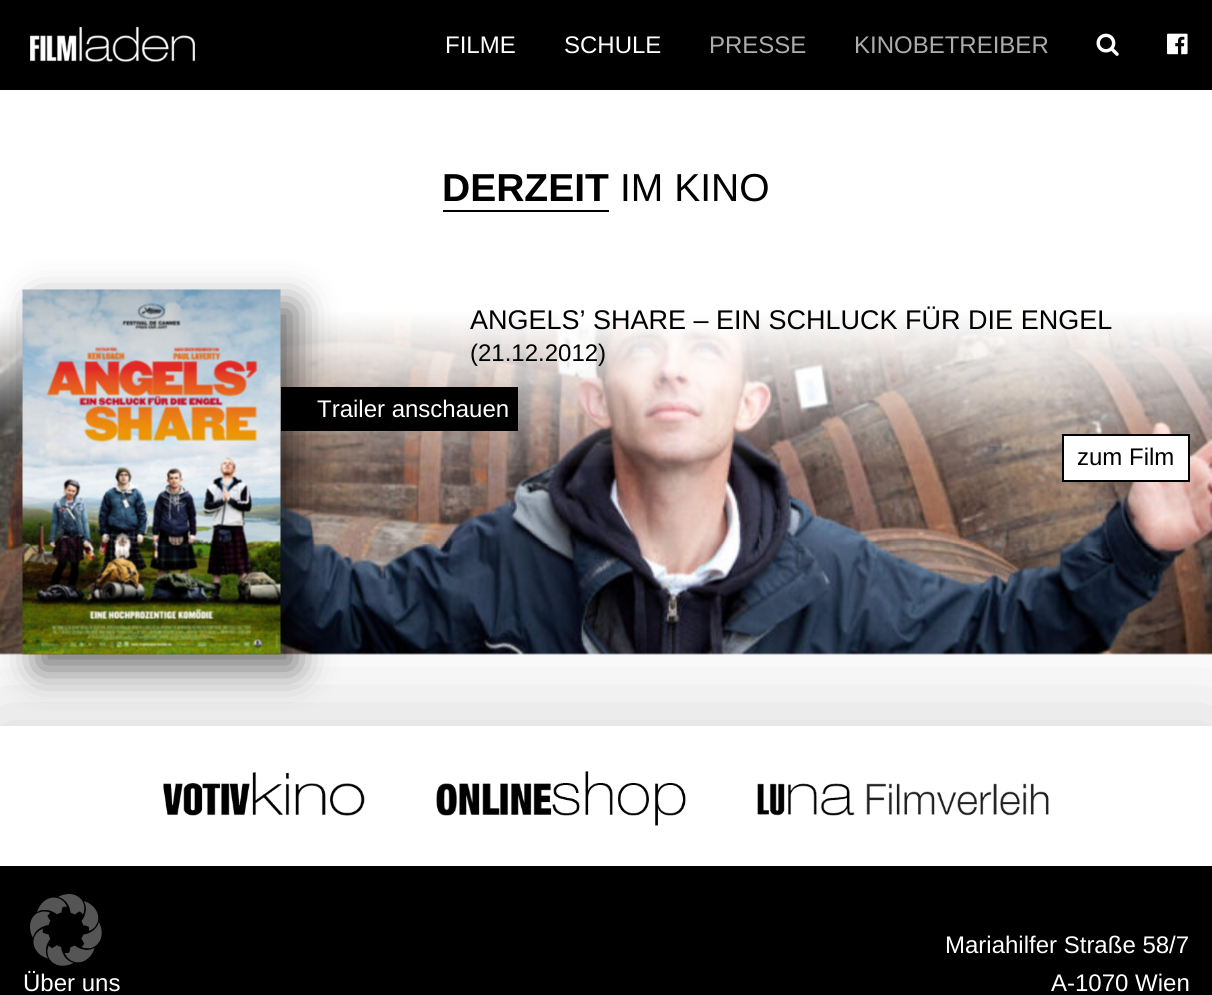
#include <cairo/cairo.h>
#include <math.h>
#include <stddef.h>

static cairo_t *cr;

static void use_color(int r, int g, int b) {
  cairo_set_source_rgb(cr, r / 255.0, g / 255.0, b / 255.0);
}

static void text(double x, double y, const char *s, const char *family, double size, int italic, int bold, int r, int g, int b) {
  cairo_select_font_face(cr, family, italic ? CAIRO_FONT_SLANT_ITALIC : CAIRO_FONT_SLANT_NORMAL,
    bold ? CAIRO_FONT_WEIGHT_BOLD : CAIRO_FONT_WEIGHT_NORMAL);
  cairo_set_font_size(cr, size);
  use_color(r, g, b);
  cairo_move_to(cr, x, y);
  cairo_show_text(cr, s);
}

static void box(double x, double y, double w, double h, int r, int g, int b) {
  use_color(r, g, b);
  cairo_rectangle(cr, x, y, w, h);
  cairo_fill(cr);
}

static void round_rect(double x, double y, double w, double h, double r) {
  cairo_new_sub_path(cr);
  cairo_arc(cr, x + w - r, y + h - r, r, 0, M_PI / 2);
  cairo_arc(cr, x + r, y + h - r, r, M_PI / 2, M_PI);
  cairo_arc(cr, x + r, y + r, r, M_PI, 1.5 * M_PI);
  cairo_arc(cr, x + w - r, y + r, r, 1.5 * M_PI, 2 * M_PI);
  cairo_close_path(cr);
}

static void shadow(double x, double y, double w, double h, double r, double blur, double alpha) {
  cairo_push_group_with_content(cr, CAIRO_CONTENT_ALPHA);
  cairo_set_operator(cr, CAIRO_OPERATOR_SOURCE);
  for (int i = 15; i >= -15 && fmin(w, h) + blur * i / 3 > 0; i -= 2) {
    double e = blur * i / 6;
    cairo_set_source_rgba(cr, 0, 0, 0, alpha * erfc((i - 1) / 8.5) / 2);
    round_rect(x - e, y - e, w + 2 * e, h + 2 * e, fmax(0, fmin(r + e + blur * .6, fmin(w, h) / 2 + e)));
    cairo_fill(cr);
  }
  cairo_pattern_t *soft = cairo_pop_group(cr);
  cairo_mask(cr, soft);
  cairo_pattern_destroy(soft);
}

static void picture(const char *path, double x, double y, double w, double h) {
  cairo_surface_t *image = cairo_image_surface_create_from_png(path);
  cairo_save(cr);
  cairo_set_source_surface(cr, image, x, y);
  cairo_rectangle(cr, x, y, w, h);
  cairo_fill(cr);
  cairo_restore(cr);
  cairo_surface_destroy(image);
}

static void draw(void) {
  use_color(255, 255, 255);
  cairo_paint(cr);
  box(0, 0, 1212, 90, 0, 0, 0);
  picture("img_01.png", 30, 27, 165, 35);
  picture("img_02.png", 1096, 33, 23, 23);
  picture("img_03.png", 1167, 33, 21, 22);
  box(443, 210, 166, 2, 0, 0, 0);
  use_color(0, 0, 0);
  shadow(-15, 711, 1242, 170, 0, 52.5, 0.15);
  picture("img_04.png", 0, 311, 1212, 344);
  picture("img_06.png", 0, 289, 1212, 177);
  box(0, 726, 1212, 140, 255, 255, 255);
  use_color(0, 0, 0);
  shadow(38, 305, 258, 364, 0, 19, 0.55);
  picture("img_05.png", 22, 289, 259, 366);
  box(281, 387, 237, 44, 0, 0, 0);
  use_color(255, 255, 255);
  cairo_rectangle(cr, 1063, 435, 126, 46);
  cairo_fill_preserve(cr);
  use_color(0, 0, 0);
  cairo_stroke(cr);
  picture("img_07.png", 163, 772, 202, 44);
  picture("img_08.png", 436, 771, 250, 55);
  picture("img_09.png", 757, 783, 292, 33);
  box(0, 866, 1212, 129, 0, 0, 0);
  picture("img_10.png", 25, 894, 79, 72);
  text(445, 53, "FILME", "Liberation Sans", 24, 0, 0, 255, 255, 255);
  text(564, 53, "SCHULE", "Liberation Sans", 24, 0, 0, 255, 255, 255);
  text(709, 53, "PRESSE", "Liberation Sans", 24, 0, 0, 172, 172, 172);
  text(854, 53, "KINOBETREIBER", "Liberation Sans", 24, 0, 0, 172, 172, 172);
  text(442, 201, "DERZEIT", "Liberation Sans", 39, 0, 1, 0, 0, 0);
  text(620, 201, "IM KINO", "Liberation Sans", 39, 0, 0, 0, 0, 0);
  text(470, 329, "ANGELS’ SHARE – EIN SCHLUCK FÜR DIE ENGEL", "Liberation Sans", 27, 0, 0, 0, 0, 0);
  text(470, 361, "(21.12.2012)", "Liberation Sans", 24, 0, 0, 0, 0, 0);
  text(317, 417, "Trailer anschauen", "Liberation Sans", 24, 0, 0, 255, 255, 255);
  text(1077, 465, "zum Film", "Liberation Sans", 24, 0, 0, 0, 0, 0);
  text(23, 991, "Über uns", "Liberation Sans", 24, 0, 0, 255, 255, 255);
  text(945, 953, "Mariahilfer Straße 58/7", "Liberation Sans", 24, 0, 0, 255, 255, 255);
  text(1051, 991, "A-1070 Wien", "Liberation Sans", 24, 0, 0, 255, 255, 255);
}

int main(void) {
  cairo_surface_t *surface = cairo_image_surface_create(CAIRO_FORMAT_RGB24, 1212, 995);
  cr = cairo_create(surface);
  cairo_font_options_t *options = cairo_font_options_create();
  cairo_font_options_set_hint_metrics(options, CAIRO_HINT_METRICS_OFF);
  cairo_font_options_set_hint_style(options, CAIRO_HINT_STYLE_NONE);
  cairo_set_font_options(cr, options);
  cairo_set_miter_limit(cr, 4);
  draw();
  cairo_surface_write_to_png(surface, "out.png");
  cairo_font_options_destroy(options);
  cairo_destroy(cr);
  cairo_surface_destroy(surface);
  return 0;
}
